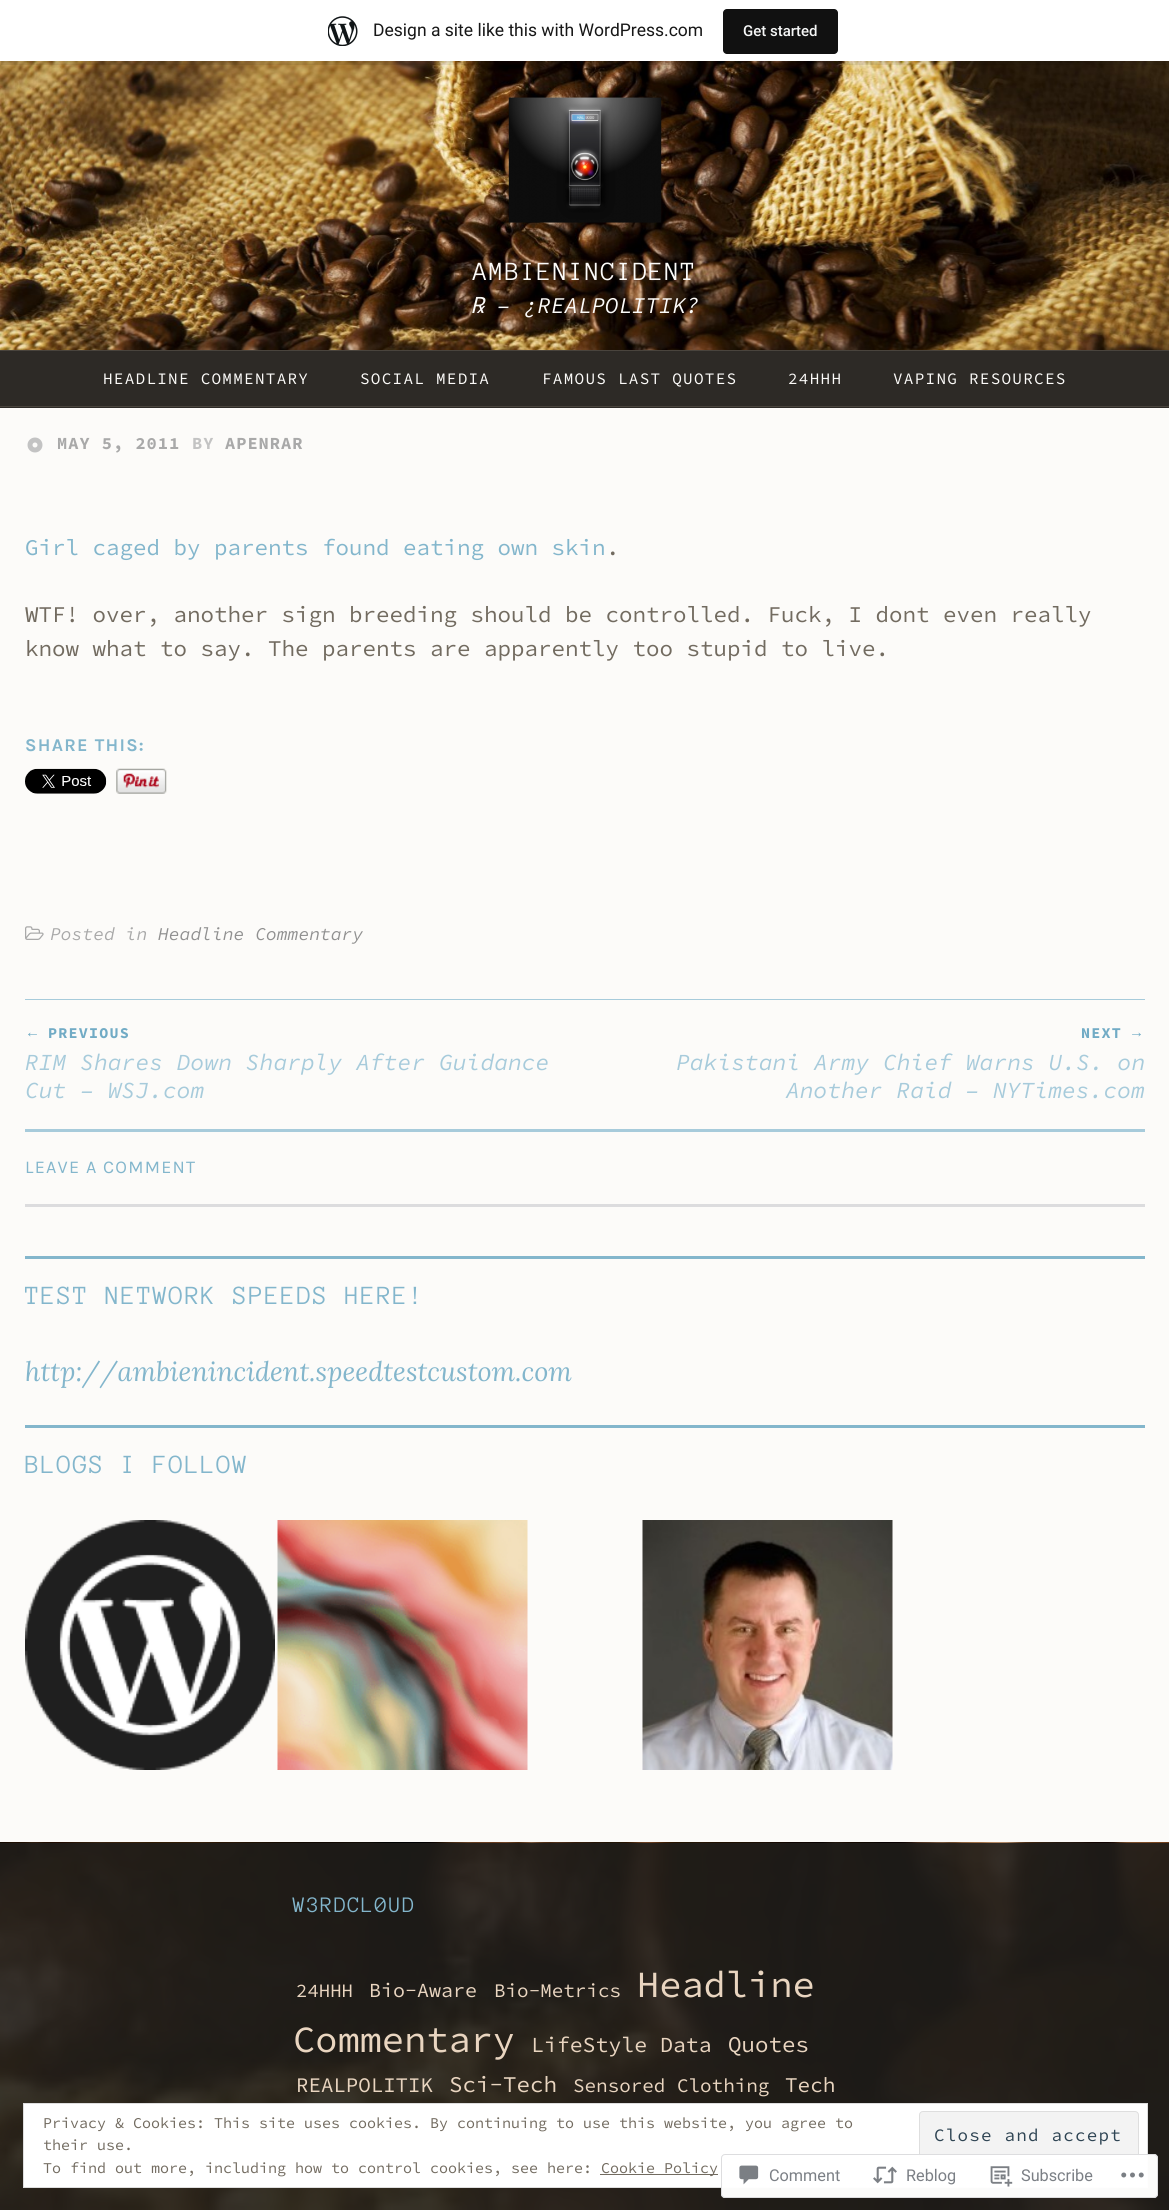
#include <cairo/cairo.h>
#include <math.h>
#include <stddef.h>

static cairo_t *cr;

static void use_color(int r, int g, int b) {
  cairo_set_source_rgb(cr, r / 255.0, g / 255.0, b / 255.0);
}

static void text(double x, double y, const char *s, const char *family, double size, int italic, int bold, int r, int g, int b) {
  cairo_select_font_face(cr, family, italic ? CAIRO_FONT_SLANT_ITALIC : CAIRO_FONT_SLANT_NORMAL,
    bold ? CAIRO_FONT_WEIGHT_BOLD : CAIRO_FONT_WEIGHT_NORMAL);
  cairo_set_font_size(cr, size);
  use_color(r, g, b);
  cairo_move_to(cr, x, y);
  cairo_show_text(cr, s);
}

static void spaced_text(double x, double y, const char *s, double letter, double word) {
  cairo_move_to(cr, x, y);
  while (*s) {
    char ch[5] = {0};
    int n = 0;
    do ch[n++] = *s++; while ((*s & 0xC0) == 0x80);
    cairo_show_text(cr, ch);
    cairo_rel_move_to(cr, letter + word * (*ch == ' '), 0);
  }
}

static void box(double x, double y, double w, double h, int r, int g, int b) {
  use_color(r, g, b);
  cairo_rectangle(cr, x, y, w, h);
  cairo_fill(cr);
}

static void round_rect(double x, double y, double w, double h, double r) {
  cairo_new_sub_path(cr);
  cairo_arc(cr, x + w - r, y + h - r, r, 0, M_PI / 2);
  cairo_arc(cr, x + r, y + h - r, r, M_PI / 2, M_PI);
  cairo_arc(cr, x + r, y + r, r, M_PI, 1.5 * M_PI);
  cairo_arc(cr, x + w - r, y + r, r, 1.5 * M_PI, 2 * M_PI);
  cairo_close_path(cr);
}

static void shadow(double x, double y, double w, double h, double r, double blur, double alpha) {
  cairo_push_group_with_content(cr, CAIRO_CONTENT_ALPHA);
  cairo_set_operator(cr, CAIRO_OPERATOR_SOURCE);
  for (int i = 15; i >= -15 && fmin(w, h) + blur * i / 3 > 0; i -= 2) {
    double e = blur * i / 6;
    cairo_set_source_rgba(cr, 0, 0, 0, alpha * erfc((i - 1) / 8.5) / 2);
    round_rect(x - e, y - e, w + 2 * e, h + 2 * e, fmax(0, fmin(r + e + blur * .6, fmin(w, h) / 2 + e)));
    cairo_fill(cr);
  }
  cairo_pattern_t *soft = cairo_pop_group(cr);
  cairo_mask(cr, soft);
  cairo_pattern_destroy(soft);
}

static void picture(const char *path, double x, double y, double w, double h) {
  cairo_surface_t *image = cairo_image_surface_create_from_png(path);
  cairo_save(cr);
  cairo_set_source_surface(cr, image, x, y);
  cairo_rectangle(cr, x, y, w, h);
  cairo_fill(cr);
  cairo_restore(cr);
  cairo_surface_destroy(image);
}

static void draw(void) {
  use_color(255, 255, 255);
  cairo_paint(cr);
  picture("img_02.png", 0, 61, 1169, 289);
  use_color(0, 0, 0);
  shadow(0, 1, 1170, 62, 0, 1, 0.05);
  cairo_set_source_rgba(cr, 0, 0, 0, 0.08);
  cairo_new_path(cr);
  cairo_move_to(cr, 1, 61);
  cairo_line_to(cr, 1, 65);
  cairo_line_to(cr, 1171, 65);
  cairo_line_to(cr, 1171, 4);
  cairo_line_to(cr, 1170, 4);
  cairo_line_to(cr, 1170, 61);
  cairo_close_path(cr);
  cairo_fill(cr);
  box(0, 0, 1169, 61, 255, 255, 255);
  picture("img_01.png", 328, 16, 30, 30);
  use_color(17, 17, 17);
  round_rect(723, 9, 115, 45, 4);
  cairo_fill(cr);
  cairo_set_source_rgba(cr, 0.988, 0.984, 0.976, 0.9);
  cairo_rectangle(cr, 0, 408, 1169, 1434);
  cairo_fill(cr);
  picture("img_03.png", 508, 97, 154, 126);
  box(0, 351, 1169, 57, 45, 42, 38);
  box(0, 350, 1169, 1, 73, 68, 61);
  box(0, 406, 1169, 1, 73, 68, 61);
  picture("img_04.png", 27, 437, 16, 16);
  picture("img_05.png", 25, 768, 82, 26);
  picture("img_06.png", 116, 768, 51, 26);
  picture("img_07.png", 25, 926, 19, 14);
  box(25, 999, 1120, 1, 167, 203, 219);
  box(25, 1129, 1120, 3, 167, 203, 219);
  box(25, 1204, 1120, 3, 220, 220, 222);
  box(25, 1256, 1120, 3, 131, 182, 204);
  box(25, 1425, 1120, 3, 131, 182, 204);
  picture("img_08.png", 25, 1520, 250, 250);
  picture("img_09.png", 277, 1520, 251, 250);
  picture("img_10.png", 642, 1520, 251, 250);
  picture("img_11.png", 0, 1842, 1169, 368);
  use_color(255, 255, 255);
  cairo_rectangle(cr, 23.5, 2103.5, 1124, 84);
  cairo_fill_preserve(cr);
  use_color(222, 222, 222);
  cairo_set_line_width(cr, 1);
  cairo_stroke(cr);
  use_color(243, 243, 243);
  round_rect(919.5, 2111.5, 219, 48, 3.5);
  cairo_fill_preserve(cr);
  use_color(222, 222, 222);
  cairo_stroke(cr);
  box(600, 2174, 118, 1, 114, 107, 96);
  cairo_set_source_rgba(cr, 1, 1, 1, 0.98);
  round_rect(721, 2154, 437, 44, 4);
  cairo_fill(cr);
  round_rect(721.5, 2154.5, 436, 43, 3.5);
  cairo_set_source_rgba(cr, 0.863, 0.863, 0.871, 0.98);
  cairo_stroke(cr);
  picture("img_12.png", 739, 2165, 20, 20);
  picture("img_13.png", 873, 2166, 24, 18);
  picture("img_14.png", 990, 2166, 23, 21);
  picture("img_15.png", 1121, 2172, 23, 6);
  text(373, 36, "Design a site like this with WordPress.com", "Roboto", 17.5, 0, 0, 23, 23, 23);
  text(743, 36, "Get started", "Roboto Medium", 15, 0, 0, 246, 247, 247);
  cairo_select_font_face(cr, "Anonymous Pro", CAIRO_FONT_SLANT_NORMAL, CAIRO_FONT_WEIGHT_NORMAL);
  cairo_set_font_size(cr, 27);
  use_color(252, 251, 249);
  spaced_text(473, 280, "AMBIENINCIDENT", 1.25, 0);
  text(470, 313, "℞", "Noto Sans", 22.5, 1, 0, 252, 251, 249);
  text(497, 313, "– ¿REALPOLITIK?", "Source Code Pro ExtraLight", 22.5, 1, 0, 252, 251, 249);
  cairo_select_font_face(cr, "Source Code Pro ExtraLight", CAIRO_FONT_SLANT_NORMAL, CAIRO_FONT_WEIGHT_NORMAL);
  cairo_set_font_size(cr, 16);
  spaced_text(103, 384, "HEADLINE COMMENTARY", 1.25, 0);
  spaced_text(360, 384, "SOCIAL MEDIA", 1.25, 0);
  spaced_text(542, 384, "FAMOUS LAST QUOTES", 1.25, 0);
  spaced_text(788, 384, "24HHH", 1.25, 0);
  spaced_text(893, 384, "VAPING RESOURCES", 1.25, 0);
  cairo_select_font_face(cr, "Source Code Pro ExtraLight", CAIRO_FONT_SLANT_NORMAL, CAIRO_FONT_WEIGHT_BOLD);
  cairo_set_font_size(cr, 17);
  use_color(169, 169, 169);
  spaced_text(57, 449, "MAY 5, 2011", 1, 0);
  use_color(195, 195, 195);
  spaced_text(192, 449, "BY", 1, 0);
  use_color(169, 169, 169);
  spaced_text(225, 449, "APENRAR", 1, 0);
  text(25, 555, "Girl caged by parents found eating own skin", "Source Code Pro ExtraLight", 22.5, 0, 0, 131, 182, 204);
  text(606, 555, ".", "Source Code Pro ExtraLight", 22.5, 0, 0, 114, 107, 96);
  text(25, 622, "WTF! over, another sign breeding should be controlled. Fuck, I dont even really", "Source Code Pro ExtraLight", 22.5, 0, 0, 114, 107, 96);
  text(25, 656, "know what to say. The parents are apparently too stupid to live.", "Source Code Pro ExtraLight", 22.5, 0, 0, 114, 107, 96);
  cairo_select_font_face(cr, "Karla", CAIRO_FONT_SLANT_NORMAL, CAIRO_FONT_WEIGHT_BOLD);
  cairo_set_font_size(cr, 18);
  use_color(131, 182, 204);
  spaced_text(25, 751, "SHARE THIS:", 1.25, 0);
  text(50, 940, "Posted in", "Source Code Pro ExtraLight", 18, 1, 0, 169, 169, 169);
  text(158, 940, "Headline Commentary", "Source Code Pro ExtraLight", 18, 1, 0, 144, 144, 144);
  cairo_select_font_face(cr, "Liberation Serif", CAIRO_FONT_SLANT_NORMAL, CAIRO_FONT_WEIGHT_NORMAL);
  cairo_set_font_size(cr, 15);
  use_color(113, 171, 197);
  spaced_text(25, 1037, "←", 1.25, 0);
  cairo_select_font_face(cr, "Source Code Pro ExtraLight", CAIRO_FONT_SLANT_NORMAL, CAIRO_FONT_WEIGHT_BOLD);
  spaced_text(48, 1038, "PREVIOUS", 1.25, 0);
  text(25, 1070, "RIM Shares Down Sharply After Guidance", "Source Code Pro ExtraLight", 23, 1, 0, 167, 203, 219);
  text(25, 1098, "Cut – WSJ.com", "Source Code Pro ExtraLight", 23, 1, 0, 167, 203, 219);
  cairo_select_font_face(cr, "Source Code Pro ExtraLight", CAIRO_FONT_SLANT_NORMAL, CAIRO_FONT_WEIGHT_BOLD);
  cairo_set_font_size(cr, 15);
  use_color(113, 171, 197);
  spaced_text(1081, 1038, "NEXT", 1.25, 0);
  cairo_select_font_face(cr, "Liberation Serif", CAIRO_FONT_SLANT_NORMAL, CAIRO_FONT_WEIGHT_NORMAL);
  spaced_text(1129, 1037, "→", 1.25, 0);
  text(676, 1070, "Pakistani Army Chief Warns U.S. on", "Source Code Pro ExtraLight", 23, 1, 0, 167, 203, 219);
  text(786, 1098, "Another Raid – NYTimes.com", "Source Code Pro ExtraLight", 23, 1, 0, 167, 203, 219);
  cairo_select_font_face(cr, "Karla", CAIRO_FONT_SLANT_NORMAL, CAIRO_FONT_WEIGHT_NORMAL);
  cairo_set_font_size(cr, 18);
  use_color(131, 182, 204);
  spaced_text(25, 1173, "LEAVE A COMMENT", 1.25, 0);
  cairo_select_font_face(cr, "Anonymous Pro", CAIRO_FONT_SLANT_NORMAL, CAIRO_FONT_WEIGHT_NORMAL);
  cairo_set_font_size(cr, 27);
  spaced_text(25, 1304, "TEST NETWORK SPEEDS HERE!", 1.25, 0);
  text(25, 1381, "http://ambienincident.speedtestcustom.com", "Lora", 27, 1, 0, 131, 182, 204);
  cairo_select_font_face(cr, "Anonymous Pro", CAIRO_FONT_SLANT_NORMAL, CAIRO_FONT_WEIGHT_NORMAL);
  spaced_text(25, 1473, "BLOGS I FOLLOW", 1.25, 0);
  cairo_set_font_size(cr, 22.75);
  spaced_text(293, 1912, "W3RDCL0UD", 1.25, 0);
  text(296, 1997, "24HHH", "Source Code Pro ExtraLight", 19, 0, 0, 233, 213, 192);
  text(369, 1997, "Bio-Aware", "Source Code Pro ExtraLight", 20, 0, 0, 233, 213, 192);
  text(494, 1997, "Bio-Metrics", "Source Code Pro ExtraLight", 19.25, 0, 0, 233, 213, 192);
  text(637, 1997, "Headline", "Source Code Pro ExtraLight", 37, 0, 0, 233, 213, 192);
  text(293, 2052, "Commentary", "Source Code Pro ExtraLight", 37, 0, 0, 233, 213, 192);
  text(531, 2052, "LifeStyle Data", "Source Code Pro ExtraLight", 21.5, 0, 0, 233, 213, 192);
  text(728, 2052, "Quotes", "Source Code Pro ExtraLight", 22.5, 0, 0, 233, 213, 192);
  text(296, 2092, "REALPOLITIK", "Source Code Pro ExtraLight", 20.75, 0, 0, 233, 213, 192);
  text(449, 2092, "Sci-Tech", "Source Code Pro ExtraLight", 22.5, 0, 0, 233, 213, 192);
  text(573, 2092, "Sensored Clothing", "Source Code Pro ExtraLight", 19.25, 0, 0, 233, 213, 192);
  text(785, 2092, "Tech", "Source Code Pro ExtraLight", 21, 0, 0, 233, 213, 192);
  text(43, 2128, "Privacy & Cookies: This site uses cookies. By continuing to use this website, you agree to", "Source Code Pro ExtraLight", 15, 0, 0, 114, 107, 96);
  text(43, 2150, "their use.", "Source Code Pro ExtraLight", 15, 0, 0, 114, 107, 96);
  cairo_set_font_size(cr, 17.5);
  use_color(46, 68, 83);
  spaced_text(934, 2141, "Close and accept", 1.25, 0);
  text(43, 2173, "To find out more, including how to control cookies, see here:", "Source Code Pro ExtraLight", 15, 0, 0, 114, 107, 96);
  text(601, 2173, "Cookie Policy", "Source Code Pro ExtraLight", 15, 0, 0, 114, 107, 96);
  text(769, 2181, "Comment", "Roboto", 16.25, 0, 0, 123, 127, 133);
  text(906, 2181, "Reblog", "Roboto", 16.25, 0, 0, 123, 127, 133);
  text(1021, 2181, "Subscribe", "Roboto", 16.25, 0, 0, 123, 127, 133);
}

int main(void) {
  cairo_surface_t *surface = cairo_image_surface_create(CAIRO_FORMAT_RGB24, 1169, 2210);
  cr = cairo_create(surface);
  cairo_font_options_t *options = cairo_font_options_create();
  cairo_font_options_set_hint_metrics(options, CAIRO_HINT_METRICS_OFF);
  cairo_font_options_set_hint_style(options, CAIRO_HINT_STYLE_NONE);
  cairo_set_font_options(cr, options);
  cairo_set_miter_limit(cr, 4);
  draw();
  cairo_surface_write_to_png(surface, "out.png");
  cairo_font_options_destroy(options);
  cairo_destroy(cr);
  cairo_surface_destroy(surface);
  return 0;
}
